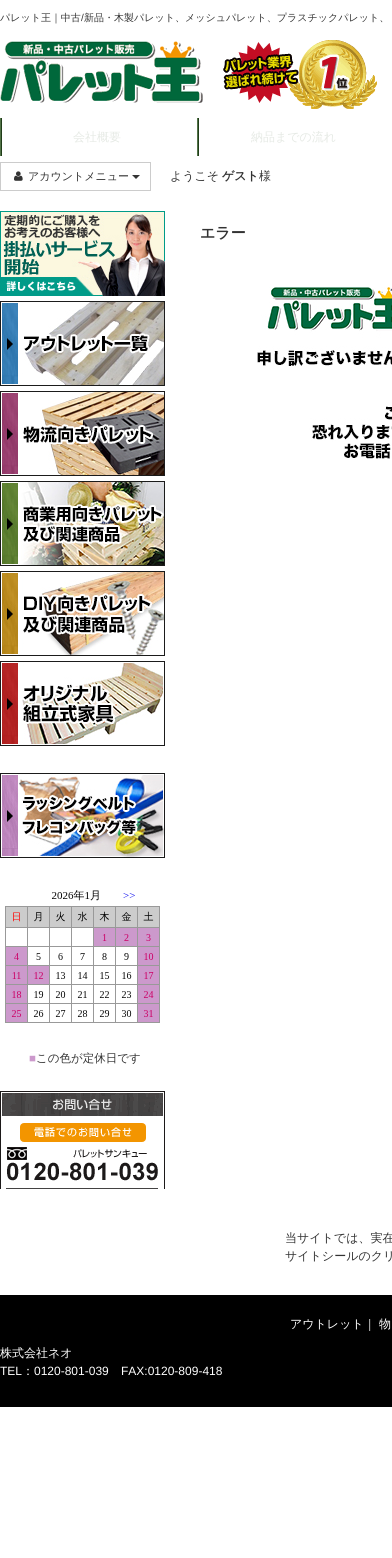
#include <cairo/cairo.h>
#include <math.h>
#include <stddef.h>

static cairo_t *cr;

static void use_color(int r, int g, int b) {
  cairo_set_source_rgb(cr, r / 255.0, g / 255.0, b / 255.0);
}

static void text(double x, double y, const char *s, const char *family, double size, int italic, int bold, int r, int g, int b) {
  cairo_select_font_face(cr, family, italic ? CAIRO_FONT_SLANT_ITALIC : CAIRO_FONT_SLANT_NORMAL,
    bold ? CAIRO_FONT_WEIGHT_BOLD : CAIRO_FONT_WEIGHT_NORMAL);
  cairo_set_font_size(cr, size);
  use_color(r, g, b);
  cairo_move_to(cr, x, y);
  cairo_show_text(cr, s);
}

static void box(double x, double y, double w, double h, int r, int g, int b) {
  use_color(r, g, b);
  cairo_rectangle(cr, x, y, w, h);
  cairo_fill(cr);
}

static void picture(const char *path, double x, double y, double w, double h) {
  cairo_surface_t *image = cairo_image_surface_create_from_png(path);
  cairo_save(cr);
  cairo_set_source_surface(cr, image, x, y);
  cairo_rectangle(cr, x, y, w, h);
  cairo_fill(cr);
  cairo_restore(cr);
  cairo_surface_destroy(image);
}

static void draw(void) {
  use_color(255, 255, 255);
  cairo_paint(cr);
  picture("img_01.png", 0, 40, 377, 69);
  box(0, 118, 1, 38, 82, 116, 72);
  box(1, 118, 1, 38, 32, 61, 25);
  box(197, 118, 1, 38, 82, 116, 72);
  box(198, 118, 1, 38, 32, 61, 25);
  cairo_rectangle(cr, 0.5, 162.5, 150, 28);
  use_color(204, 204, 204);
  cairo_set_line_width(cr, 1);
  cairo_stroke(cr);
  picture("img_02.png", 14, 171, 9, 10);
  use_color(51, 51, 51);
  cairo_new_path(cr);
  cairo_move_to(cr, 132, 175);
  cairo_line_to(cr, 140, 175);
  cairo_line_to(cr, 136, 179);
  cairo_close_path(cr);
  cairo_fill(cr);
  picture("img_03.png", 257, 287, 135, 172);
  picture("img_04.png", 0, 211, 165, 85);
  picture("img_05.png", 0, 301, 165, 85);
  picture("img_06.png", 0, 391, 165, 85);
  picture("img_07.png", 0, 481, 165, 85);
  picture("img_08.png", 0, 571, 165, 85);
  picture("img_09.png", 0, 661, 165, 85);
  picture("img_10.png", 0, 773, 165, 85);
  picture("img_11.png", 5, 890, 155, 133);
  picture("img_12.png", 0, 1091, 165, 98);
  box(0, 1295, 392, 112, 0, 0, 0);
  text(0, 21, "パレット王｜中古", "WenQuanYi Zen Hei Medium", 10, 0, 0, 51, 51, 51);
  text(81, 21, "/", "Liberation Sans", 10, 0, 0, 51, 51, 51);
  text(84, 21, "新品・木製パレット、メッシュパレット、プラスチックパレット、", "WenQuanYi Zen Hei Medium", 10, 0, 0, 51, 51, 51);
  text(73, 141, "会社概要", "WenQuanYi Zen Hei Medium", 12, 0, 0, 230, 234, 229);
  text(251, 141, "納品までの流れ", "WenQuanYi Zen Hei Medium", 12, 0, 0, 230, 234, 229);
  text(28, 180, "アカウントメニュー", "WenQuanYi Zen Hei Medium", 11, 0, 0, 51, 51, 51);
  text(170, 180, "ようこそ", "WenQuanYi Zen Hei Medium", 12, 0, 0, 51, 51, 51);
  text(222, 180, "ゲスト", "WenQuanYi Zen Hei", 12, 0, 1, 51, 51, 51);
  text(259, 180, "様", "WenQuanYi Zen Hei Medium", 12, 0, 0, 51, 51, 51);
  text(200, 238, "エラー", "WenQuanYi Zen Hei", 15, 0, 1, 51, 51, 51);
  text(29, 1062, "■", "Liberation Sans", 11.5, 0, 0, 204, 153, 204);
  text(36, 1062, "この色が定休日です", "WenQuanYi Zen Hei Medium", 11.5, 0, 0, 51, 51, 51);
  text(285, 1242, "当サイトでは、実在", "WenQuanYi Zen Hei Medium", 12, 0, 0, 51, 51, 51);
  text(285, 1260, "サイトシールのクリ", "WenQuanYi Zen Hei Medium", 12, 0, 0, 51, 51, 51);
  text(290, 1328, "アウトレット｜ 物", "WenQuanYi Zen Hei Medium", 12, 0, 0, 255, 255, 255);
  text(0, 1357, "株式会社ネオ", "WenQuanYi Zen Hei Medium", 12, 0, 0, 255, 255, 255);
  text(0, 1375, "TEL", "Liberation Sans", 12, 0, 0, 255, 255, 255);
  text(22, 1375, "：", "WenQuanYi Zen Hei Medium", 12, 0, 0, 255, 255, 255);
  text(34, 1375, "0120-801-039", "Liberation Sans", 12, 0, 0, 255, 255, 255);
  text(121, 1375, "FAX:0120-809-418", "Liberation Sans", 12, 0, 0, 255, 255, 255);
}

int main(void) {
  cairo_surface_t *surface = cairo_image_surface_create(CAIRO_FORMAT_RGB24, 392, 1558);
  cr = cairo_create(surface);
  cairo_font_options_t *options = cairo_font_options_create();
  cairo_font_options_set_hint_metrics(options, CAIRO_HINT_METRICS_OFF);
  cairo_font_options_set_hint_style(options, CAIRO_HINT_STYLE_NONE);
  cairo_set_font_options(cr, options);
  cairo_set_miter_limit(cr, 4);
  draw();
  cairo_surface_write_to_png(surface, "out.png");
  cairo_font_options_destroy(options);
  cairo_destroy(cr);
  cairo_surface_destroy(surface);
  return 0;
}
